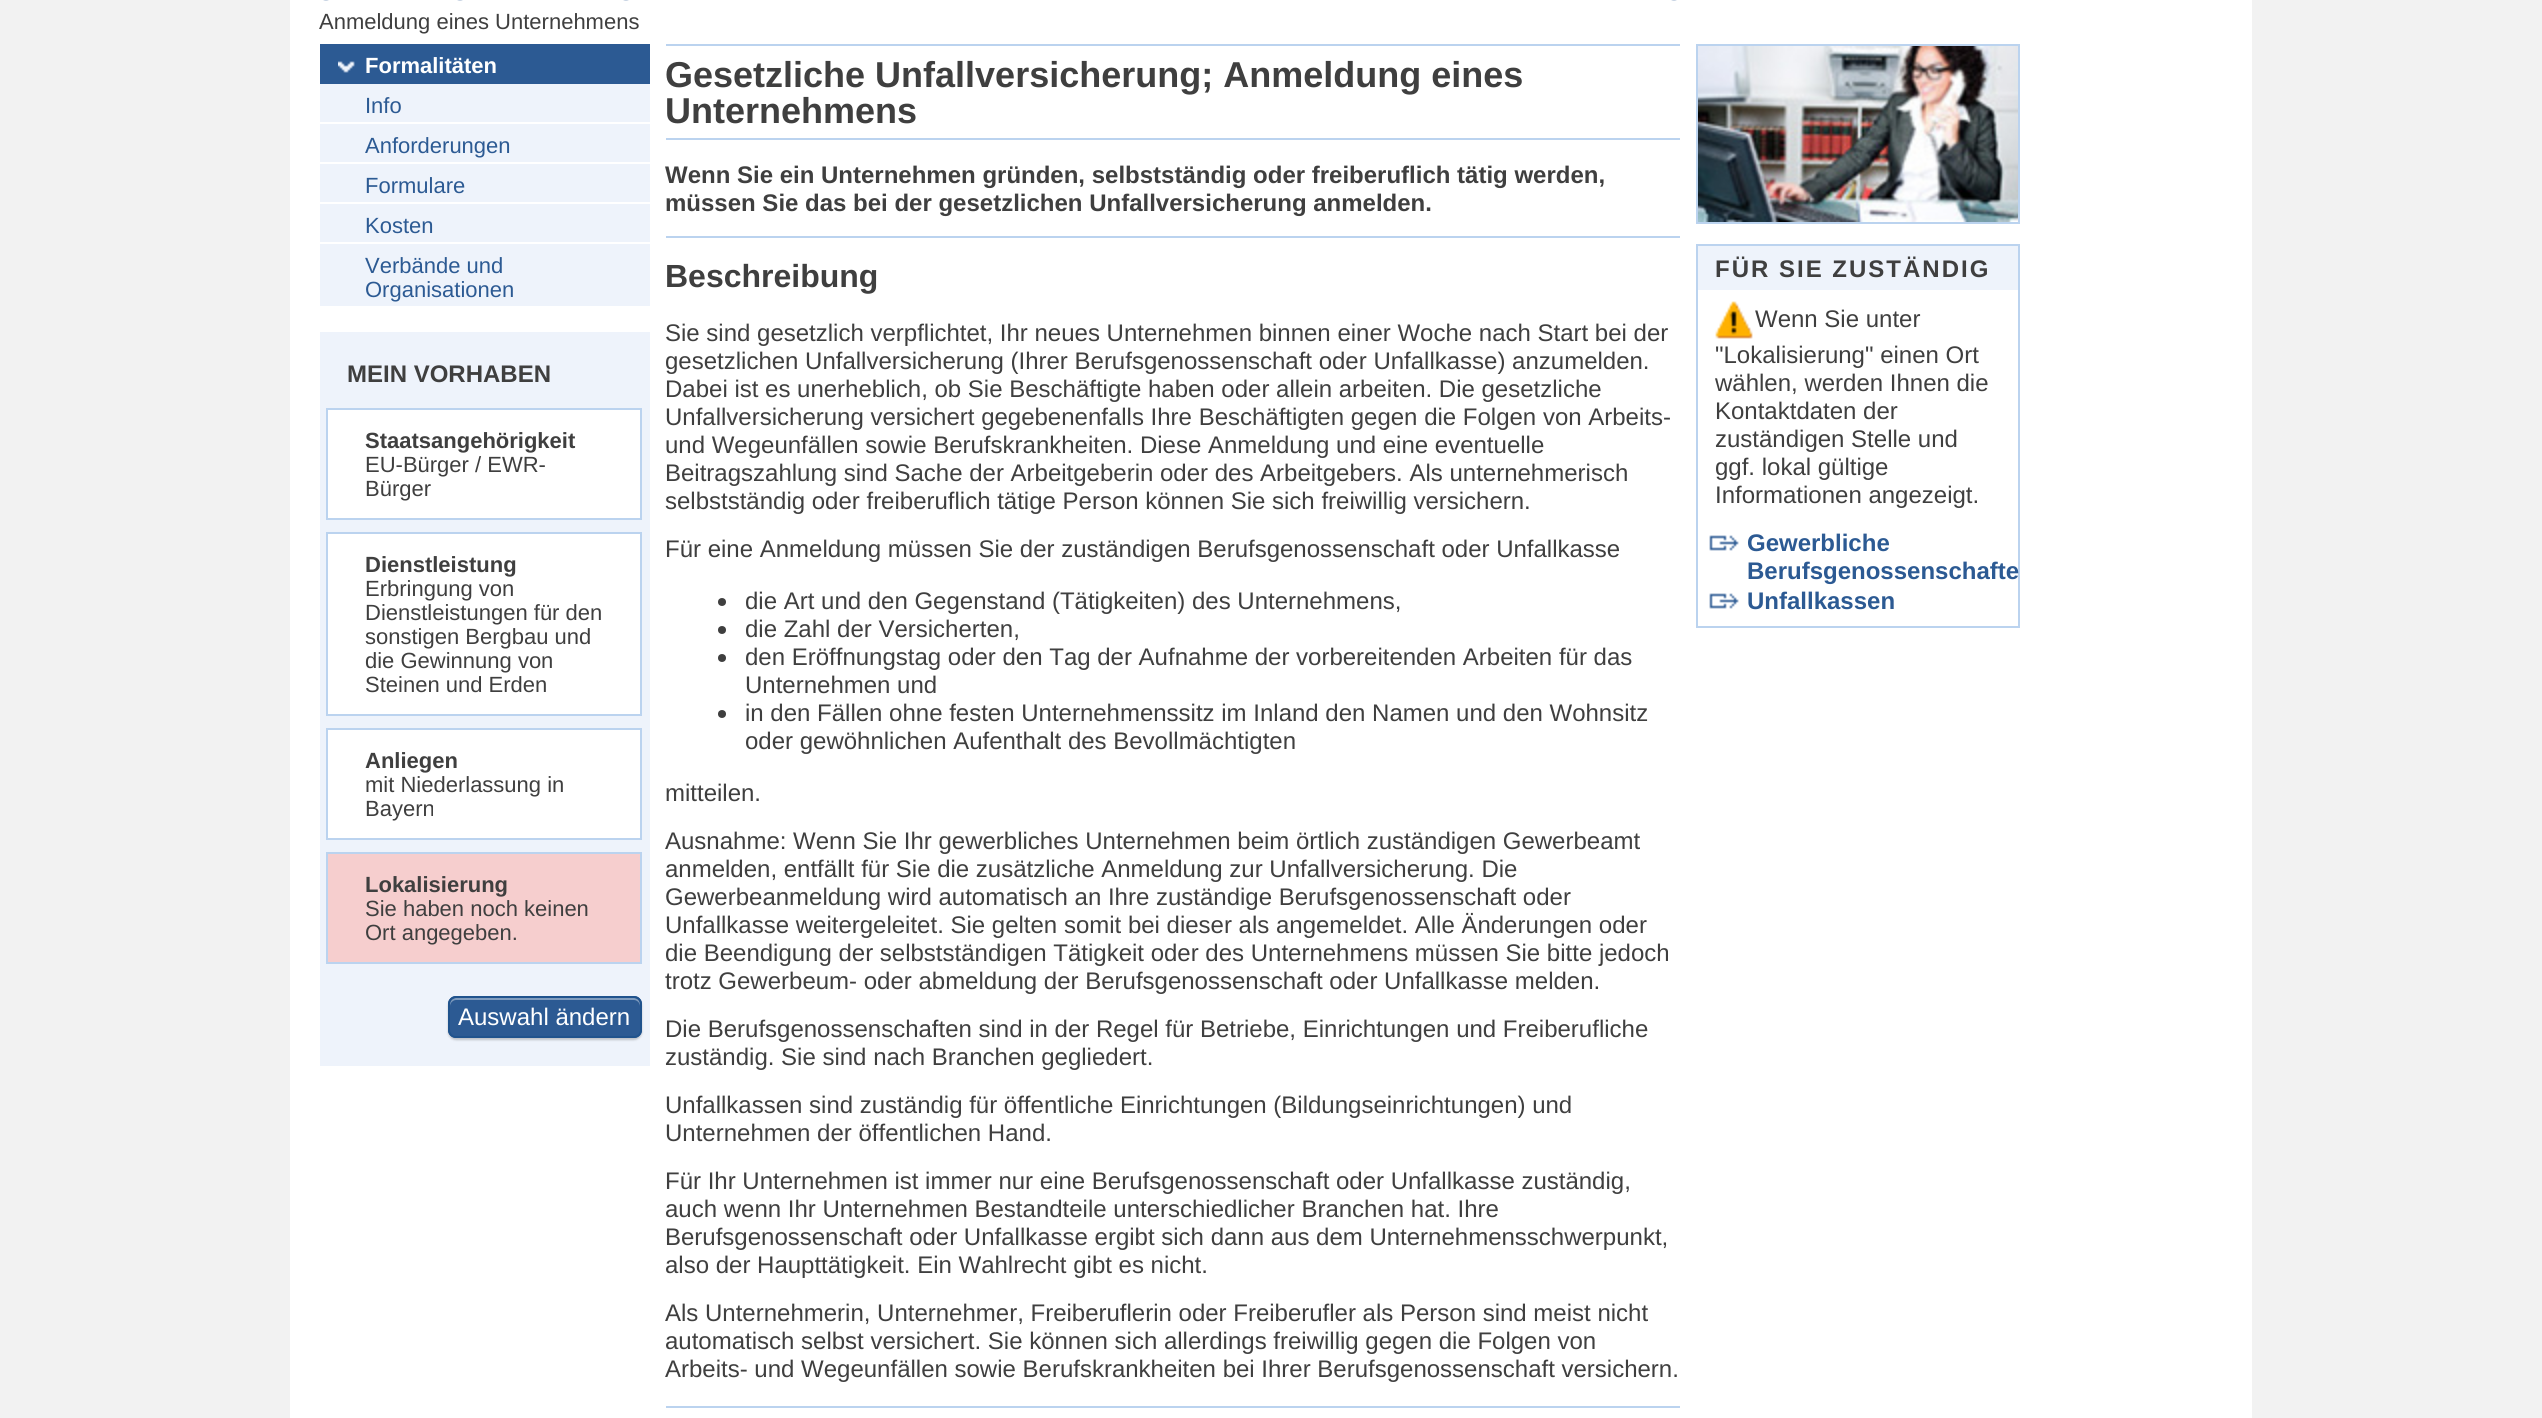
#include <cairo/cairo.h>
#include <math.h>
#include <stddef.h>

static cairo_t *cr;

static void use_color(int r, int g, int b) {
  cairo_set_source_rgb(cr, r / 255.0, g / 255.0, b / 255.0);
}

static void text(double x, double y, const char *s, const char *family, double size, int italic, int bold, int r, int g, int b) {
  cairo_select_font_face(cr, family, italic ? CAIRO_FONT_SLANT_ITALIC : CAIRO_FONT_SLANT_NORMAL,
    bold ? CAIRO_FONT_WEIGHT_BOLD : CAIRO_FONT_WEIGHT_NORMAL);
  cairo_set_font_size(cr, size);
  use_color(r, g, b);
  cairo_move_to(cr, x, y);
  cairo_show_text(cr, s);
}

static void spaced_text(double x, double y, const char *s, double letter, double word) {
  cairo_move_to(cr, x, y);
  while (*s) {
    char ch[5] = {0};
    int n = 0;
    do ch[n++] = *s++; while ((*s & 0xC0) == 0x80);
    cairo_show_text(cr, ch);
    cairo_rel_move_to(cr, letter + word * (*ch == ' '), 0);
  }
}

static void box(double x, double y, double w, double h, int r, int g, int b) {
  use_color(r, g, b);
  cairo_rectangle(cr, x, y, w, h);
  cairo_fill(cr);
}

static void round_rect(double x, double y, double w, double h, double r) {
  cairo_new_sub_path(cr);
  cairo_arc(cr, x + w - r, y + h - r, r, 0, M_PI / 2);
  cairo_arc(cr, x + r, y + h - r, r, M_PI / 2, M_PI);
  cairo_arc(cr, x + r, y + r, r, M_PI, 1.5 * M_PI);
  cairo_arc(cr, x + w - r, y + r, r, 1.5 * M_PI, 2 * M_PI);
  cairo_close_path(cr);
}

static void shadow(double x, double y, double w, double h, double r, double blur, double alpha) {
  cairo_push_group_with_content(cr, CAIRO_CONTENT_ALPHA);
  cairo_set_operator(cr, CAIRO_OPERATOR_SOURCE);
  for (int i = 15; i >= -15 && fmin(w, h) + blur * i / 3 > 0; i -= 2) {
    double e = blur * i / 6;
    cairo_set_source_rgba(cr, 0, 0, 0, alpha * erfc((i - 1) / 8.5) / 2);
    round_rect(x - e, y - e, w + 2 * e, h + 2 * e, fmax(0, fmin(r + e + blur * .6, fmin(w, h) / 2 + e)));
    cairo_fill(cr);
  }
  cairo_pattern_t *soft = cairo_pop_group(cr);
  cairo_mask(cr, soft);
  cairo_pattern_destroy(soft);
}

static void picture(const char *path, double x, double y, double w, double h) {
  cairo_surface_t *image = cairo_image_surface_create_from_png(path);
  cairo_save(cr);
  cairo_set_source_surface(cr, image, x, y);
  cairo_rectangle(cr, x, y, w, h);
  cairo_fill(cr);
  cairo_restore(cr);
  cairo_surface_destroy(image);
}

static void draw(void) {
  use_color(242, 242, 242);
  cairo_paint(cr);
  box(290, 0, 1962, 1418, 255, 255, 255);
  picture("img_01.png", 323, 0, 6, 1);
  picture("img_01.png", 457, 0, 6, 1);
  picture("img_01.png", 623, 0, 6, 1);
  picture("img_01.png", 1671, 0, 6, 1);
  box(320, 44, 330, 40, 44, 90, 147);
  picture("img_02.png", 338, 61, 17, 12);
  box(320, 84, 330, 38, 238, 243, 251);
  box(320, 124, 330, 38, 238, 243, 251);
  box(320, 164, 330, 38, 238, 243, 251);
  box(320, 204, 330, 38, 238, 243, 251);
  box(320, 244, 330, 62, 238, 243, 251);
  box(320, 332, 330, 734, 238, 243, 251);
  use_color(255, 255, 255);
  cairo_rectangle(cr, 327, 409, 314, 110);
  cairo_fill_preserve(cr);
  use_color(187, 211, 239);
  cairo_stroke(cr);
  use_color(255, 255, 255);
  cairo_rectangle(cr, 327, 533, 314, 182);
  cairo_fill_preserve(cr);
  use_color(187, 211, 239);
  cairo_stroke(cr);
  use_color(255, 255, 255);
  cairo_rectangle(cr, 327, 729, 314, 110);
  cairo_fill_preserve(cr);
  use_color(187, 211, 239);
  cairo_stroke(cr);
  use_color(246, 206, 206);
  cairo_rectangle(cr, 327, 853, 314, 110);
  cairo_fill_preserve(cr);
  use_color(187, 211, 239);
  cairo_stroke(cr);
  use_color(0, 0, 0);
  shadow(448, 998, 194, 42, 8, 1, 0.2);
  use_color(44, 90, 147);
  round_rect(448, 996, 194, 42, 8);
  cairo_fill(cr);
  use_color(128, 156, 190);
  cairo_new_path(cr);
  cairo_move_to(cr, 456, 1000);
  cairo_line_to(cr, 634, 1000);
  cairo_curve_to(cr, 637, 1000, 640, 1003, 640, 1006);
  cairo_line_to(cr, 640, 1004);
  cairo_curve_to(cr, 640, 1001, 637, 998, 634, 998);
  cairo_line_to(cr, 456, 998);
  cairo_curve_to(cr, 453, 998, 450, 1001, 450, 1004);
  cairo_line_to(cr, 450, 1006);
  cairo_curve_to(cr, 450, 1003, 453, 1000, 456, 1000);
  cairo_close_path(cr);
  cairo_fill(cr);
  round_rect(449, 997, 192, 40, 7);
  use_color(32, 83, 141);
  cairo_stroke(cr);
  box(666, 44, 1014, 2, 187, 211, 239);
  box(666, 138, 1014, 2, 187, 211, 239);
  box(666, 236, 1014, 2, 187, 211, 239);
  box(666, 1406, 1014, 2, 187, 211, 239);
  use_color(63, 63, 63);
  cairo_arc(cr, 722, 602, 4, 0, 2 * M_PI);
  cairo_fill(cr);
  cairo_arc(cr, 722, 630, 4, 0, 2 * M_PI);
  cairo_fill(cr);
  cairo_arc(cr, 722, 658, 4, 0, 2 * M_PI);
  cairo_fill(cr);
  cairo_arc(cr, 722, 714, 4, 0, 2 * M_PI);
  cairo_fill(cr);
  cairo_rectangle(cr, 1697, 45, 322, 178);
  use_color(187, 211, 239);
  cairo_stroke(cr);
  picture("img_03.png", 1698, 46, 320, 176);
  cairo_rectangle(cr, 1697, 245, 322, 382);
  cairo_stroke(cr);
  box(1698, 246, 320, 44, 238, 243, 251);
  picture("img_04.png", 1715, 301, 38, 38);
  picture("img_05.png", 1709, 535, 30, 16);
  picture("img_05.png", 1709, 593, 30, 16);
  text(319, 29, "Anmeldung eines Unternehmens", "Liberation Sans", 22, 0, 0, 63, 63, 63);
  text(365, 73, "Formalitäten", "Liberation Sans", 22, 0, 1, 255, 255, 255);
  text(365, 113, "Info", "Liberation Sans", 22, 0, 0, 44, 90, 147);
  text(365, 153, "Anforderungen", "Liberation Sans", 22, 0, 0, 44, 90, 147);
  text(365, 193, "Formulare", "Liberation Sans", 22, 0, 0, 44, 90, 147);
  text(365, 233, "Kosten", "Liberation Sans", 22, 0, 0, 44, 90, 147);
  text(365, 273, "Verbände und", "Liberation Sans", 22, 0, 0, 44, 90, 147);
  text(365, 297, "Organisationen", "Liberation Sans", 22, 0, 0, 44, 90, 147);
  text(347, 382, "MEIN VORHABEN", "Liberation Sans", 24, 0, 1, 63, 63, 63);
  text(365, 448, "Staatsangehörigkeit", "Liberation Sans", 22, 0, 1, 63, 63, 63);
  text(365, 472, "EU-Bürger / EWR-", "Liberation Sans", 22, 0, 0, 63, 63, 63);
  text(365, 496, "Bürger", "Liberation Sans", 22, 0, 0, 63, 63, 63);
  text(365, 572, "Dienstleistung", "Liberation Sans", 22, 0, 1, 63, 63, 63);
  text(365, 596, "Erbringung von", "Liberation Sans", 22, 0, 0, 63, 63, 63);
  text(365, 620, "Dienstleistungen für den", "Liberation Sans", 22, 0, 0, 63, 63, 63);
  text(365, 644, "sonstigen Bergbau und", "Liberation Sans", 22, 0, 0, 63, 63, 63);
  text(365, 668, "die Gewinnung von", "Liberation Sans", 22, 0, 0, 63, 63, 63);
  text(365, 692, "Steinen und Erden", "Liberation Sans", 22, 0, 0, 63, 63, 63);
  text(365, 768, "Anliegen", "Liberation Sans", 22, 0, 1, 63, 63, 63);
  text(365, 792, "mit Niederlassung in", "Liberation Sans", 22, 0, 0, 63, 63, 63);
  text(365, 816, "Bayern", "Liberation Sans", 22, 0, 0, 63, 63, 63);
  text(365, 892, "Lokalisierung", "Liberation Sans", 22, 0, 1, 63, 63, 63);
  text(365, 916, "Sie haben noch keinen", "Liberation Sans", 22, 0, 0, 63, 63, 63);
  text(365, 940, "Ort angegeben.", "Liberation Sans", 22, 0, 0, 63, 63, 63);
  text(458, 1025, "Auswahl ändern", "Liberation Sans", 24, 0, 0, 255, 255, 255);
  text(665, 87, "Gesetzliche Unfallversicherung; Anmeldung eines", "Liberation Sans", 36, 0, 1, 63, 63, 63);
  text(665, 123, "Unternehmens", "Liberation Sans", 36, 0, 1, 63, 63, 63);
  text(665, 183, "Wenn Sie ein Unternehmen gründen, selbstständig oder freiberuflich tätig werden,", "Liberation Sans", 24, 0, 1, 63, 63, 63);
  text(665, 211, "müssen Sie das bei der gesetzlichen Unfallversicherung anmelden.", "Liberation Sans", 24, 0, 1, 63, 63, 63);
  text(665, 287, "Beschreibung", "Liberation Sans", 32, 0, 1, 63, 63, 63);
  text(665, 341, "Sie sind gesetzlich verpflichtet, Ihr neues Unternehmen binnen einer Woche nach Start bei der", "Liberation Sans", 24, 0, 0, 63, 63, 63);
  text(665, 369, "gesetzlichen Unfallversicherung (Ihrer Berufsgenossenschaft oder Unfallkasse) anzumelden.", "Liberation Sans", 24, 0, 0, 63, 63, 63);
  text(665, 397, "Dabei ist es unerheblich, ob Sie Beschäftigte haben oder allein arbeiten. Die gesetzliche", "Liberation Sans", 24, 0, 0, 63, 63, 63);
  text(665, 425, "Unfallversicherung versichert gegebenenfalls Ihre Beschäftigten gegen die Folgen von Arbeits-", "Liberation Sans", 24, 0, 0, 63, 63, 63);
  text(665, 453, "und Wegeunfällen sowie Berufskrankheiten. Diese Anmeldung und eine eventuelle", "Liberation Sans", 24, 0, 0, 63, 63, 63);
  text(665, 481, "Beitragszahlung sind Sache der Arbeitgeberin oder des Arbeitgebers. Als unternehmerisch", "Liberation Sans", 24, 0, 0, 63, 63, 63);
  text(665, 509, "selbstständig oder freiberuflich tätige Person können Sie sich freiwillig versichern.", "Liberation Sans", 24, 0, 0, 63, 63, 63);
  text(665, 557, "Für eine Anmeldung müssen Sie der zuständigen Berufsgenossenschaft oder Unfallkasse", "Liberation Sans", 24, 0, 0, 63, 63, 63);
  text(745, 609, "die Art und den Gegenstand (Tätigkeiten) des Unternehmens,", "Liberation Sans", 24, 0, 0, 63, 63, 63);
  text(745, 637, "die Zahl der Versicherten,", "Liberation Sans", 24, 0, 0, 63, 63, 63);
  text(745, 665, "den Eröffnungstag oder den Tag der Aufnahme der vorbereitenden Arbeiten für das", "Liberation Sans", 24, 0, 0, 63, 63, 63);
  text(745, 693, "Unternehmen und", "Liberation Sans", 24, 0, 0, 63, 63, 63);
  text(745, 721, "in den Fällen ohne festen Unternehmenssitz im Inland den Namen und den Wohnsitz", "Liberation Sans", 24, 0, 0, 63, 63, 63);
  text(745, 749, "oder gewöhnlichen Aufenthalt des Bevollmächtigten", "Liberation Sans", 24, 0, 0, 63, 63, 63);
  text(665, 801, "mitteilen.", "Liberation Sans", 24, 0, 0, 63, 63, 63);
  text(665, 849, "Ausnahme: Wenn Sie Ihr gewerbliches Unternehmen beim örtlich zuständigen Gewerbeamt", "Liberation Sans", 24, 0, 0, 63, 63, 63);
  text(665, 877, "anmelden, entfällt für Sie die zusätzliche Anmeldung zur Unfallversicherung. Die", "Liberation Sans", 24, 0, 0, 63, 63, 63);
  text(665, 905, "Gewerbeanmeldung wird automatisch an Ihre zuständige Berufsgenossenschaft oder", "Liberation Sans", 24, 0, 0, 63, 63, 63);
  text(665, 933, "Unfallkasse weitergeleitet. Sie gelten somit bei dieser als angemeldet. Alle Änderungen oder", "Liberation Sans", 24, 0, 0, 63, 63, 63);
  text(665, 961, "die Beendigung der selbstständigen Tätigkeit oder des Unternehmens müssen Sie bitte jedoch", "Liberation Sans", 24, 0, 0, 63, 63, 63);
  text(665, 989, "trotz Gewerbeum- oder abmeldung der Berufsgenossenschaft oder Unfallkasse melden.", "Liberation Sans", 24, 0, 0, 63, 63, 63);
  text(665, 1037, "Die Berufsgenossenschaften sind in der Regel für Betriebe, Einrichtungen und Freiberufliche", "Liberation Sans", 24, 0, 0, 63, 63, 63);
  text(665, 1065, "zuständig. Sie sind nach Branchen gegliedert.", "Liberation Sans", 24, 0, 0, 63, 63, 63);
  text(665, 1113, "Unfallkassen sind zuständig für öffentliche Einrichtungen (Bildungseinrichtungen) und", "Liberation Sans", 24, 0, 0, 63, 63, 63);
  text(665, 1141, "Unternehmen der öffentlichen Hand.", "Liberation Sans", 24, 0, 0, 63, 63, 63);
  text(665, 1189, "Für Ihr Unternehmen ist immer nur eine Berufsgenossenschaft oder Unfallkasse zuständig,", "Liberation Sans", 24, 0, 0, 63, 63, 63);
  text(665, 1217, "auch wenn Ihr Unternehmen Bestandteile unterschiedlicher Branchen hat. Ihre", "Liberation Sans", 24, 0, 0, 63, 63, 63);
  text(665, 1245, "Berufsgenossenschaft oder Unfallkasse ergibt sich dann aus dem Unternehmensschwerpunkt,", "Liberation Sans", 24, 0, 0, 63, 63, 63);
  text(665, 1273, "also der Haupttätigkeit. Ein Wahlrecht gibt es nicht.", "Liberation Sans", 24, 0, 0, 63, 63, 63);
  text(665, 1321, "Als Unternehmerin, Unternehmer, Freiberuflerin oder Freiberufler als Person sind meist nicht", "Liberation Sans", 24, 0, 0, 63, 63, 63);
  text(665, 1349, "automatisch selbst versichert. Sie können sich allerdings freiwillig gegen die Folgen von", "Liberation Sans", 24, 0, 0, 63, 63, 63);
  text(665, 1377, "Arbeits- und Wegeunfällen sowie Berufskrankheiten bei Ihrer Berufsgenossenschaft versichern.", "Liberation Sans", 24, 0, 0, 63, 63, 63);
  cairo_select_font_face(cr, "Liberation Sans", CAIRO_FONT_SLANT_NORMAL, CAIRO_FONT_WEIGHT_BOLD);
  spaced_text(1715, 277, "FÜR SIE ZUSTÄNDIG", 2, 0);
  text(1755, 327, "Wenn Sie unter", "Liberation Sans", 24, 0, 0, 63, 63, 63);
  text(1715, 363, "\"Lokalisierung\" einen Ort", "Liberation Sans", 24, 0, 0, 63, 63, 63);
  text(1715, 391, "wählen, werden Ihnen die", "Liberation Sans", 24, 0, 0, 63, 63, 63);
  text(1715, 419, "Kontaktdaten der", "Liberation Sans", 24, 0, 0, 63, 63, 63);
  text(1715, 447, "zuständigen Stelle und", "Liberation Sans", 24, 0, 0, 63, 63, 63);
  text(1715, 475, "ggf. lokal gültige", "Liberation Sans", 24, 0, 0, 63, 63, 63);
  text(1715, 503, "Informationen angezeigt.", "Liberation Sans", 24, 0, 0, 63, 63, 63);
  text(1747, 551, "Gewerbliche", "Liberation Sans", 24, 0, 1, 44, 90, 147);
  text(1747, 579, "Berufsgenossenschafte", "Liberation Sans", 24, 0, 1, 44, 90, 147);
  text(1747, 609, "Unfallkassen", "Liberation Sans", 24, 0, 1, 44, 90, 147);
}

int main(void) {
  cairo_surface_t *surface = cairo_image_surface_create(CAIRO_FORMAT_RGB24, 2542, 1418);
  cr = cairo_create(surface);
  cairo_font_options_t *options = cairo_font_options_create();
  cairo_font_options_set_hint_metrics(options, CAIRO_HINT_METRICS_OFF);
  cairo_font_options_set_hint_style(options, CAIRO_HINT_STYLE_NONE);
  cairo_set_font_options(cr, options);
  cairo_set_miter_limit(cr, 4);
  draw();
  cairo_surface_write_to_png(surface, "out.png");
  cairo_font_options_destroy(options);
  cairo_destroy(cr);
  cairo_surface_destroy(surface);
  return 0;
}
